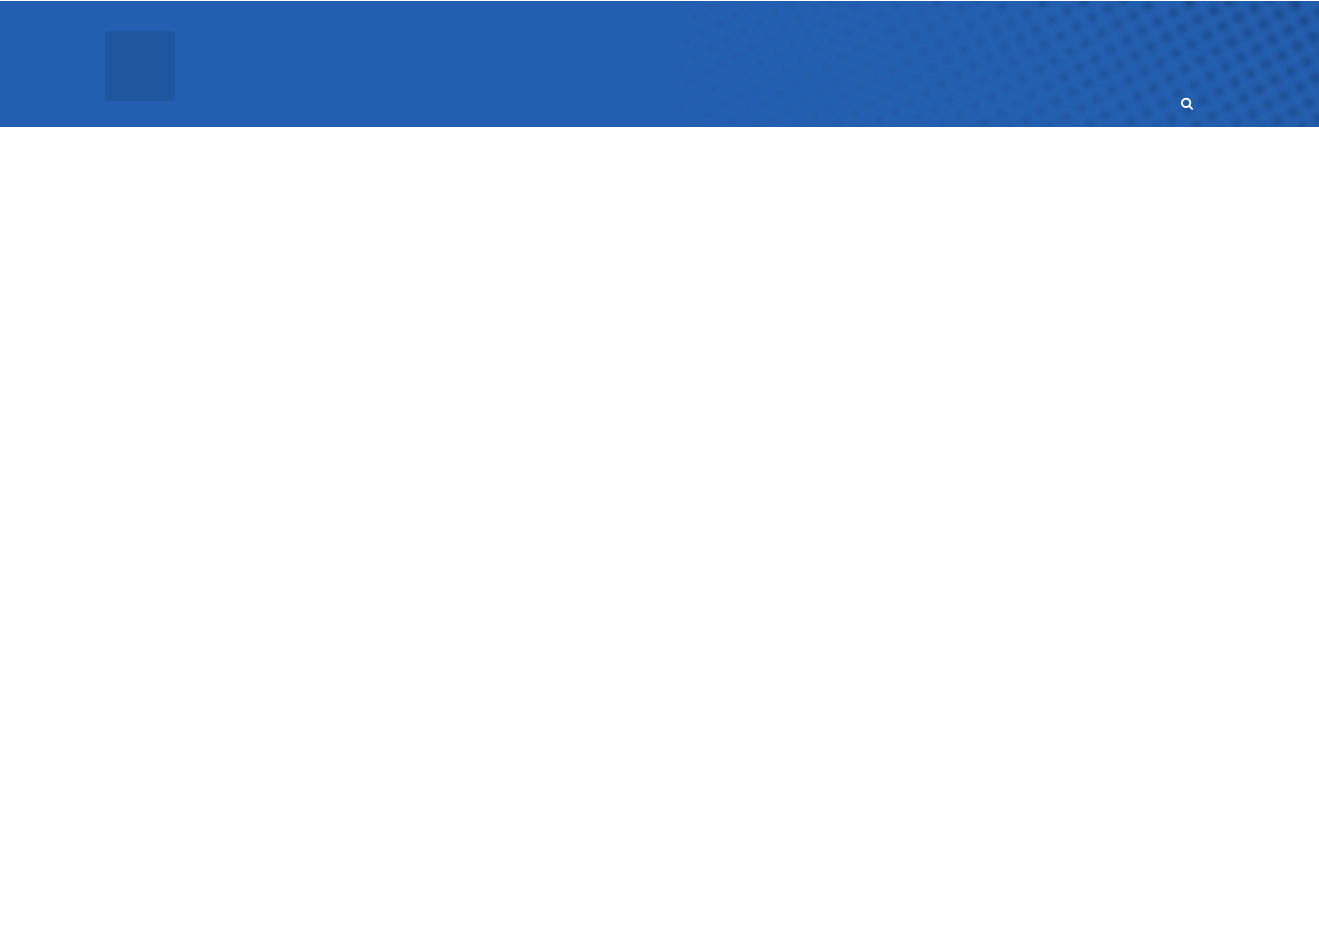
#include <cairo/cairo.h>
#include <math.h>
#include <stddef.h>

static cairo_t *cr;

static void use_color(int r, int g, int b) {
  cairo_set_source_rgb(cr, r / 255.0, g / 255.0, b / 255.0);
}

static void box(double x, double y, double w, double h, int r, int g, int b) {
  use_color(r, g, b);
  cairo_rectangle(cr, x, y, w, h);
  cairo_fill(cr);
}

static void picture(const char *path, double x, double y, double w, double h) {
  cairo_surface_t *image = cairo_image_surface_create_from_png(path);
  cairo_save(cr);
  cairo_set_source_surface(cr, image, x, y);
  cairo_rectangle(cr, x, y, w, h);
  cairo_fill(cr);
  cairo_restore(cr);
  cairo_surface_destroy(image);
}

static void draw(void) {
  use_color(255, 255, 255);
  cairo_paint(cr);
  box(0, 1, 680, 126, 35, 95, 176);
  picture("img_01.png", 680, 1, 639, 126);
  box(105, 31, 70, 70, 32, 86, 158);
  picture("img_02.png", 1181, 97, 12, 13);
}

int main(void) {
  cairo_surface_t *surface = cairo_image_surface_create(CAIRO_FORMAT_RGB24, 1319, 931);
  cr = cairo_create(surface);
  cairo_font_options_t *options = cairo_font_options_create();
  cairo_font_options_set_hint_metrics(options, CAIRO_HINT_METRICS_OFF);
  cairo_font_options_set_hint_style(options, CAIRO_HINT_STYLE_NONE);
  cairo_set_font_options(cr, options);
  cairo_set_miter_limit(cr, 4);
  draw();
  cairo_surface_write_to_png(surface, "out.png");
  cairo_font_options_destroy(options);
  cairo_destroy(cr);
  cairo_surface_destroy(surface);
  return 0;
}
